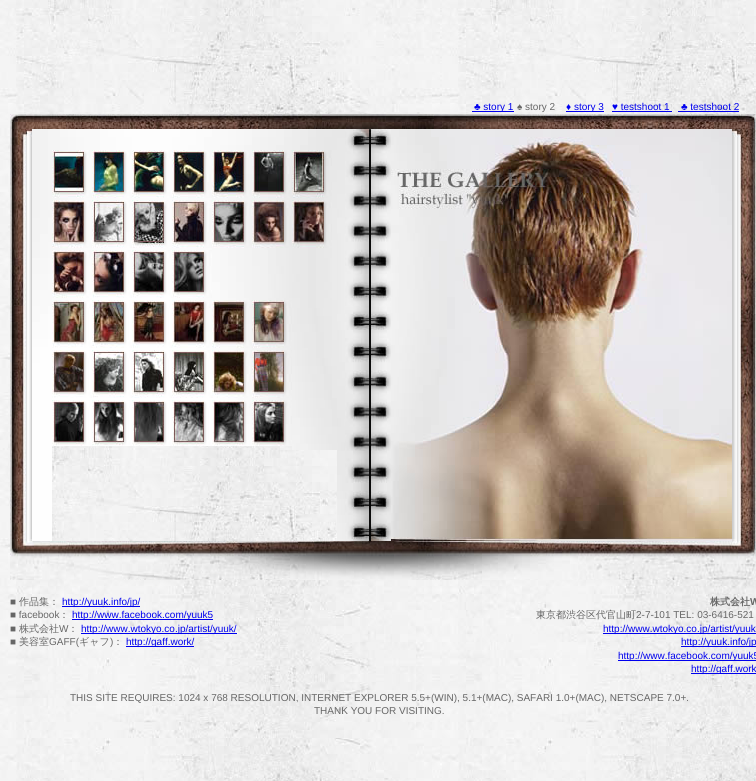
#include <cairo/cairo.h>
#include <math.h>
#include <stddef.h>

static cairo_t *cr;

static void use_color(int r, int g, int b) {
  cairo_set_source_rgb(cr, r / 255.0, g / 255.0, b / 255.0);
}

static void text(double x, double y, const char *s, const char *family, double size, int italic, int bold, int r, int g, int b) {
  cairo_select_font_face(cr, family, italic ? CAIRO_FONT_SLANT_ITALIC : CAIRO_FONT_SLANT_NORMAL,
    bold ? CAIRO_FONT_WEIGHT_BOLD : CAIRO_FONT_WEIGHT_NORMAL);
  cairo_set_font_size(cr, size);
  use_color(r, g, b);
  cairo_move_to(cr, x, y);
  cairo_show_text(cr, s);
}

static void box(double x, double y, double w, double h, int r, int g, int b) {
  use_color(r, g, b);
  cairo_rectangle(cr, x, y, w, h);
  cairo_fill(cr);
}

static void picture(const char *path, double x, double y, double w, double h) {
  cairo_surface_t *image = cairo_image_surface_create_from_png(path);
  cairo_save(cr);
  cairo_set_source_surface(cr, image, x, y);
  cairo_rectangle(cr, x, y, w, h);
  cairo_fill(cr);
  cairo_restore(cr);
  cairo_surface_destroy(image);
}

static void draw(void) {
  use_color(255, 255, 255);
  cairo_paint(cr);
  picture("img_01.png", 0, 0, 756, 781);
  box(472, 111, 42, 1, 0, 0, 238);
  box(566, 111, 38, 1, 0, 0, 238);
  box(612, 111, 60, 1, 0, 0, 238);
  box(678, 111, 61, 1, 0, 0, 238);
  picture("img_02.png", 10, 114, 746, 15);
  picture("img_03.png", 10, 129, 22, 412);
  picture("img_04.png", 32, 129, 20, 412);
  picture("img_05.png", 52, 129, 285, 21);
  picture("img_06.png", 52, 150, 40, 50);
  picture("img_07.png", 92, 150, 40, 50);
  picture("img_08.png", 132, 150, 40, 50);
  picture("img_09.png", 172, 150, 40, 50);
  picture("img_10.png", 212, 150, 40, 50);
  picture("img_11.png", 252, 150, 40, 50);
  picture("img_12.png", 292, 150, 45, 50);
  picture("img_13.png", 52, 200, 40, 50);
  picture("img_14.png", 92, 200, 40, 50);
  picture("img_15.png", 132, 200, 40, 50);
  picture("img_16.png", 172, 200, 40, 50);
  picture("img_17.png", 212, 200, 40, 50);
  picture("img_18.png", 252, 200, 40, 50);
  picture("img_19.png", 292, 200, 45, 50);
  picture("img_20.png", 52, 250, 40, 50);
  picture("img_21.png", 92, 250, 40, 50);
  picture("img_22.png", 132, 250, 40, 50);
  picture("img_23.png", 172, 250, 40, 50);
  picture("img_24.png", 212, 250, 40, 50);
  picture("img_25.png", 252, 250, 40, 50);
  picture("img_26.png", 292, 250, 45, 50);
  picture("img_27.png", 52, 300, 40, 50);
  picture("img_28.png", 92, 300, 40, 50);
  picture("img_29.png", 132, 300, 40, 50);
  picture("img_30.png", 172, 300, 40, 50);
  picture("img_31.png", 212, 300, 40, 50);
  picture("img_32.png", 252, 300, 40, 50);
  picture("img_33.png", 292, 300, 45, 50);
  picture("img_34.png", 52, 350, 40, 50);
  picture("img_35.png", 92, 350, 40, 50);
  picture("img_36.png", 132, 350, 40, 50);
  picture("img_37.png", 172, 350, 40, 50);
  picture("img_38.png", 212, 350, 40, 50);
  picture("img_39.png", 252, 350, 40, 50);
  picture("img_40.png", 292, 350, 45, 50);
  picture("img_41.png", 52, 400, 40, 46);
  picture("img_42.png", 92, 400, 40, 46);
  picture("img_43.png", 132, 400, 40, 46);
  picture("img_44.png", 172, 400, 40, 46);
  picture("img_45.png", 212, 400, 40, 46);
  picture("img_46.png", 252, 400, 40, 46);
  picture("img_47.png", 292, 400, 45, 50);
  picture("img_48.png", 337, 129, 34, 412);
  picture("img_49.png", 371, 129, 20, 412);
  picture("img_50.png", 391, 129, 341, 412);
  picture("img_51.png", 732, 129, 24, 412);
  picture("img_52.png", 10, 541, 746, 39);
  box(62, 606, 78, 1, 0, 0, 238);
  box(72, 619, 141, 1, 0, 0, 238);
  box(81, 633, 156, 1, 0, 0, 238);
  box(126, 646, 68, 1, 0, 0, 238);
  box(603, 633, 153, 1, 0, 0, 238);
  box(681, 646, 75, 1, 0, 0, 238);
  box(618, 660, 138, 1, 0, 0, 238);
  box(691, 673, 65, 1, 0, 0, 238);
  text(474, 110, "♣ story 1", "Liberation Sans", 10, 0, 0, 0, 0, 238);
  text(517, 110, "♠ story 2", "Liberation Sans", 10, 0, 0, 102, 102, 102);
  text(566, 110, "♦ story 3", "Liberation Sans", 10, 0, 0, 0, 0, 238);
  text(612, 110, "♥ testshoot 1", "Liberation Sans", 10, 0, 0, 0, 0, 238);
  text(681, 110, "♣ testshoot 2", "Liberation Sans", 10, 0, 0, 0, 0, 238);
  text(10, 605, "■", "Liberation Sans", 10, 0, 0, 102, 102, 102);
  text(19, 605, "作品集：", "WenQuanYi Zen Hei Medium", 10, 0, 0, 102, 102, 102);
  text(62, 605, "http://yuuk.info/jp/", "Liberation Sans", 10, 0, 0, 0, 0, 238);
  text(10, 618, "■ facebook", "Liberation Sans", 10, 0, 0, 102, 102, 102);
  text(59, 618, "：", "WenQuanYi Zen Hei Medium", 10, 0, 0, 102, 102, 102);
  text(72, 618, "http://www.facebook.com/yuuk5", "Liberation Sans", 10, 0, 0, 0, 0, 238);
  text(10, 632, "■", "Liberation Sans", 10, 0, 0, 102, 102, 102);
  text(19, 632, "株式会社", "WenQuanYi Zen Hei Medium", 10, 0, 0, 102, 102, 102);
  text(59, 632, "W", "Liberation Sans", 10, 0, 0, 102, 102, 102);
  text(68, 632, "：", "WenQuanYi Zen Hei Medium", 10, 0, 0, 102, 102, 102);
  text(81, 632, "http://www.wtokyo.co.jp/artist/yuuk/", "Liberation Sans", 10, 0, 0, 0, 0, 238);
  text(10, 645, "■", "Liberation Sans", 10, 0, 0, 102, 102, 102);
  text(19, 645, "美容室", "WenQuanYi Zen Hei Medium", 10, 0, 0, 102, 102, 102);
  text(49, 645, "GAFF(", "Liberation Sans", 10, 0, 0, 102, 102, 102);
  text(79, 645, "ギャフ", "WenQuanYi Zen Hei Medium", 10, 0, 0, 102, 102, 102);
  text(110, 645, ")", "Liberation Sans", 10, 0, 0, 102, 102, 102);
  text(113, 645, "：", "WenQuanYi Zen Hei Medium", 10, 0, 0, 102, 102, 102);
  text(126, 645, "http://gaff.work/", "Liberation Sans", 10, 0, 0, 0, 0, 238);
  text(710, 605, "株式会社", "WenQuanYi Zen Hei", 10, 0, 1, 102, 102, 102);
  text(750, 605, "W", "Liberation Sans", 10, 0, 1, 102, 102, 102);
  text(536, 618, "東京都渋谷区代官山町", "WenQuanYi Zen Hei Medium", 10, 0, 0, 102, 102, 102);
  text(636, 618, "2-7-101 TEL: 03-6416-521", "Liberation Sans", 10, 0, 0, 102, 102, 102);
  text(603, 632, "http://www.wtokyo.co.jp/artist/yuuk", "Liberation Sans", 10, 0, 0, 0, 0, 238);
  text(681, 645, "http://yuuk.info/jp", "Liberation Sans", 10, 0, 0, 0, 0, 238);
  text(618, 659, "http://www.facebook.com/yuuk5", "Liberation Sans", 10, 0, 0, 0, 0, 238);
  text(691, 672, "http://gaff.work", "Liberation Sans", 10, 0, 0, 0, 0, 238);
  text(70, 701, "THIS SITE REQUIRES: 1024 x 768 RESOLUTION, INTERNET EXPLORER 5.5+(WIN), 5.1+(MAC), SAFARI 1.0+(MAC), NETSCAPE 7.0+.", "Liberation Sans", 10, 0, 0, 102, 102, 102);
  text(314, 714, "THANK YOU FOR VISITING.", "Liberation Sans", 10, 0, 0, 102, 102, 102);
}

int main(void) {
  cairo_surface_t *surface = cairo_image_surface_create(CAIRO_FORMAT_RGB24, 756, 781);
  cr = cairo_create(surface);
  cairo_font_options_t *options = cairo_font_options_create();
  cairo_font_options_set_hint_metrics(options, CAIRO_HINT_METRICS_OFF);
  cairo_font_options_set_hint_style(options, CAIRO_HINT_STYLE_NONE);
  cairo_set_font_options(cr, options);
  cairo_set_miter_limit(cr, 4);
  draw();
  cairo_surface_write_to_png(surface, "out.png");
  cairo_font_options_destroy(options);
  cairo_destroy(cr);
  cairo_surface_destroy(surface);
  return 0;
}
